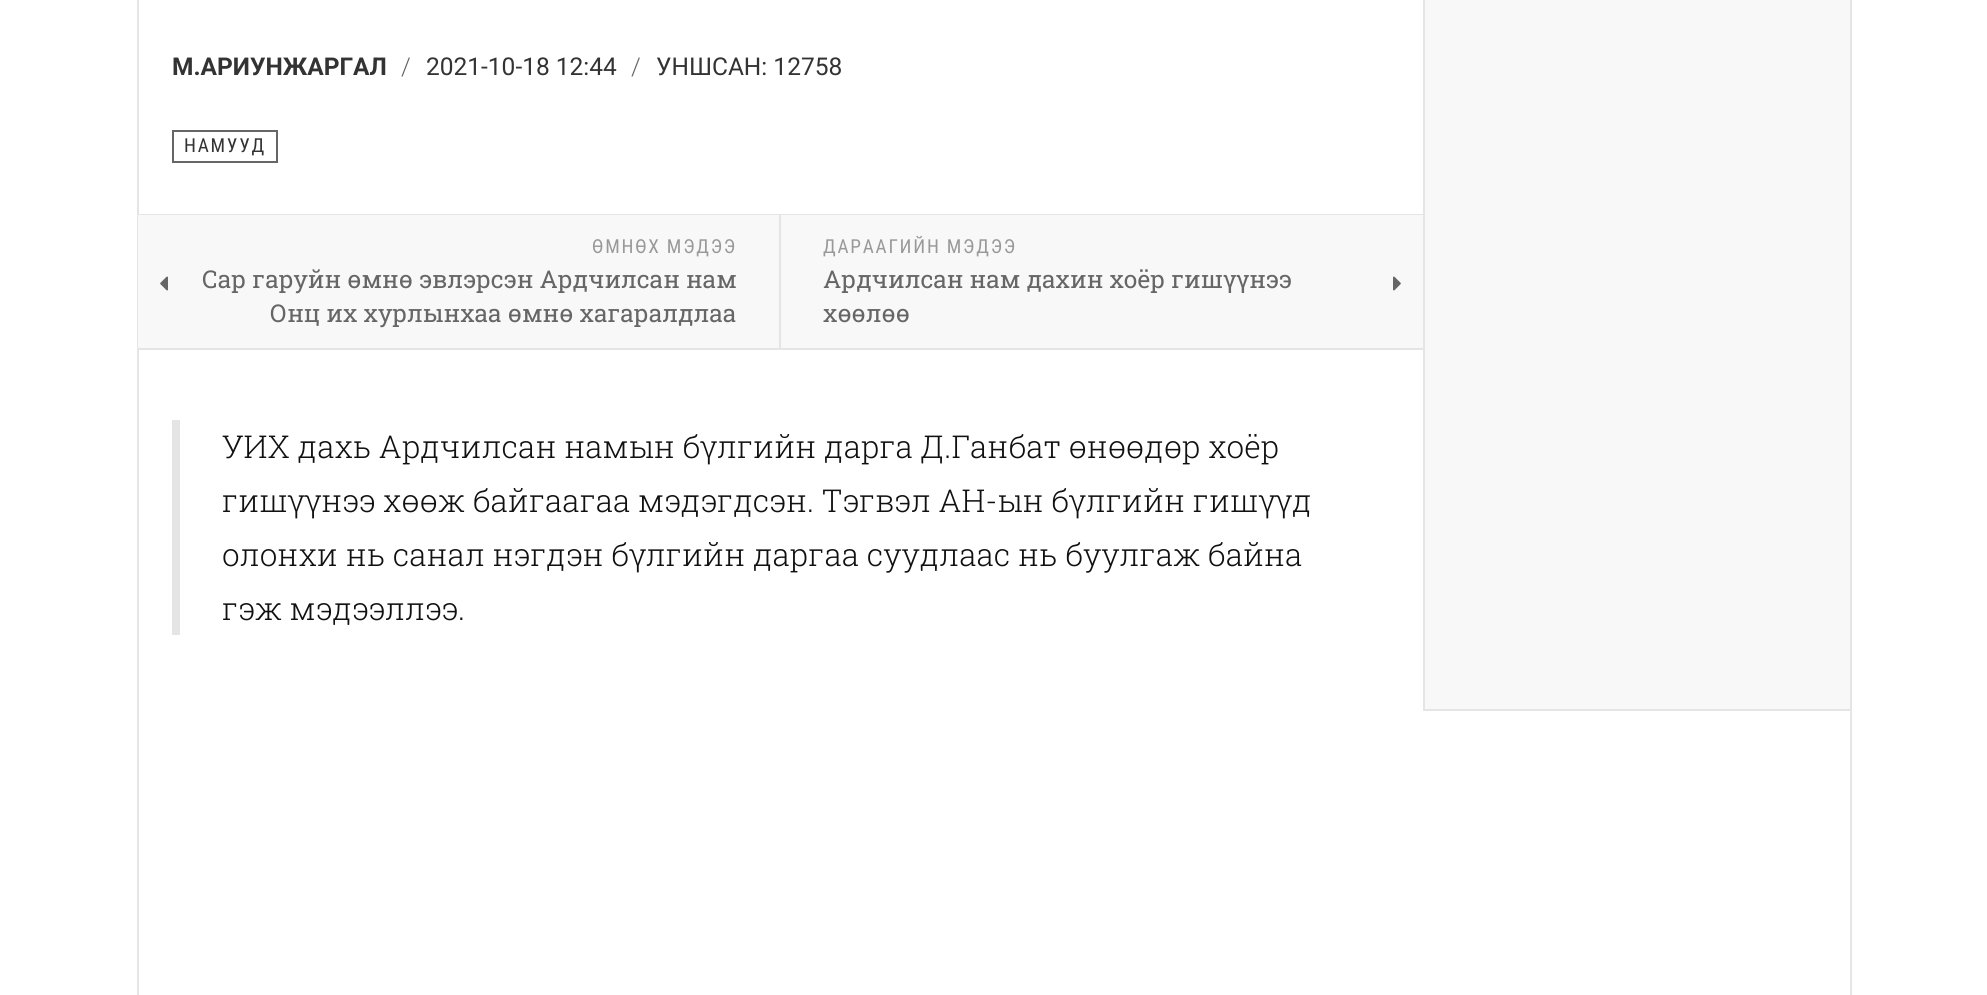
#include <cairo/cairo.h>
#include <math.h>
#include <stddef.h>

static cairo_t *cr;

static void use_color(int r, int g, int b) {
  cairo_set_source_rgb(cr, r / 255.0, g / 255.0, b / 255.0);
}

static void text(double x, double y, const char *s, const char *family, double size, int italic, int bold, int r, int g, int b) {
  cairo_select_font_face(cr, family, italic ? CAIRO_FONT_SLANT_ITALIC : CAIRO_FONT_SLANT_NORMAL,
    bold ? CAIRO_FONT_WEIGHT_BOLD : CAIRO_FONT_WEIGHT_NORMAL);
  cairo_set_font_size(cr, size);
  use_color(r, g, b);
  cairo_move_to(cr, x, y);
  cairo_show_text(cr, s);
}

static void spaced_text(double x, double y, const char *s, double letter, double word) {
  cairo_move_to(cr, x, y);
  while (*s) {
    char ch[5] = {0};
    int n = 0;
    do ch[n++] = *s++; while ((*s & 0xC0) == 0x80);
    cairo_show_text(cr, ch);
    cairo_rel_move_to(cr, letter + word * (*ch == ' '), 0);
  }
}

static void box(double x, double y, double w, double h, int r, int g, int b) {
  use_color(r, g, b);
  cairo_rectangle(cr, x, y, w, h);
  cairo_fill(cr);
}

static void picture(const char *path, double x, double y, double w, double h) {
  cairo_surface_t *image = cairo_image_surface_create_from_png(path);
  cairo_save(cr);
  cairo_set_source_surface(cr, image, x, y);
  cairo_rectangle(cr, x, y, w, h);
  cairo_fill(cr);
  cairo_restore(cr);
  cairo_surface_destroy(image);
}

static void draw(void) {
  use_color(255, 255, 255);
  cairo_paint(cr);
  cairo_rectangle(cr, 138, -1, 1713, 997);
  use_color(229, 229, 229);
  cairo_stroke(cr);
  cairo_rectangle(cr, 173, 131, 104, 31);
  use_color(102, 102, 102);
  cairo_stroke(cr);
  box(137, 214, 1286, 1, 229, 229, 229);
  box(137, 348, 1286, 2, 229, 229, 229);
  box(779, 215, 2, 133, 229, 229, 229);
  box(138, 215, 641, 133, 248, 248, 248);
  picture("img_01.png", 160, 276, 8, 15);
  box(781, 215, 642, 133, 248, 248, 248);
  picture("img_02.png", 1393, 276, 8, 15);
  box(172, 420, 8, 215, 229, 229, 229);
  use_color(248, 248, 248);
  cairo_rectangle(cr, 1424, -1, 427, 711);
  cairo_fill_preserve(cr);
  use_color(229, 229, 229);
  cairo_stroke(cr);
  text(172, 75, "М.АРИУНЖАРГАЛ", "Roboto", 24.5, 0, 1, 51, 51, 51);
  text(401, 75, "/", "Roboto Light", 24.5, 0, 0, 102, 102, 102);
  text(426, 75, "2021-10-18 12:44", "Roboto", 24.5, 0, 0, 51, 51, 51);
  text(631, 75, "/", "Roboto Light", 24.5, 0, 0, 102, 102, 102);
  text(656, 75, "УНШСАН: 12758", "Roboto", 24.5, 0, 0, 51, 51, 51);
  cairo_select_font_face(cr, "Roboto Condensed", CAIRO_FONT_SLANT_NORMAL, CAIRO_FONT_WEIGHT_NORMAL);
  cairo_set_font_size(cr, 19.25);
  spaced_text(184, 152, "НАМУУД", 1.75, 0);
  use_color(153, 153, 153);
  spaced_text(592, 253, "ӨМНӨХ МЭДЭЭ", 1.75, 0);
  text(202, 288, "Сар гаруйн өмнө эвлэрсэн Ардчилсан нам", "Roboto Slab", 24.5, 0, 0, 102, 102, 102);
  text(270, 322, "Онц их хурлынхаа өмнө хагаралдлаа", "Roboto Slab", 24.5, 0, 0, 102, 102, 102);
  cairo_select_font_face(cr, "Roboto Condensed", CAIRO_FONT_SLANT_NORMAL, CAIRO_FONT_WEIGHT_NORMAL);
  cairo_set_font_size(cr, 19.25);
  use_color(153, 153, 153);
  spaced_text(823, 253, "ДАРААГИЙН МЭДЭЭ", 1.75, 0);
  text(823, 288, "Ардчилсан нам дахин хоёр гишүүнээ", "Roboto Slab", 24.5, 0, 0, 102, 102, 102);
  text(823, 322, "хөөлөө", "Roboto Slab", 24.5, 0, 0, 102, 102, 102);
  text(222, 458, "УИХ дахь Ардчилсан намын бүлгийн дарга Д.Ганбат өнөөдөр хоёр", "Roboto Slab Light", 31.5, 0, 0, 17, 17, 17);
  text(222, 512, "гишүүнээ хөөж байгаагаа мэдэгдсэн. Тэгвэл АН-ын бүлгийн гишүүд", "Roboto Slab Light", 31.5, 0, 0, 17, 17, 17);
  text(222, 566, "олонхи нь санал нэгдэн бүлгийн даргаа суудлаас нь буулгаж байна", "Roboto Slab Light", 31.5, 0, 0, 17, 17, 17);
  text(222, 620, "гэж мэдээллээ.", "Roboto Slab Light", 31.5, 0, 0, 17, 17, 17);
}

int main(void) {
  cairo_surface_t *surface = cairo_image_surface_create(CAIRO_FORMAT_RGB24, 1987, 995);
  cr = cairo_create(surface);
  cairo_font_options_t *options = cairo_font_options_create();
  cairo_font_options_set_hint_metrics(options, CAIRO_HINT_METRICS_OFF);
  cairo_font_options_set_hint_style(options, CAIRO_HINT_STYLE_NONE);
  cairo_set_font_options(cr, options);
  cairo_set_miter_limit(cr, 4);
  draw();
  cairo_surface_write_to_png(surface, "out.png");
  cairo_font_options_destroy(options);
  cairo_destroy(cr);
  cairo_surface_destroy(surface);
  return 0;
}
